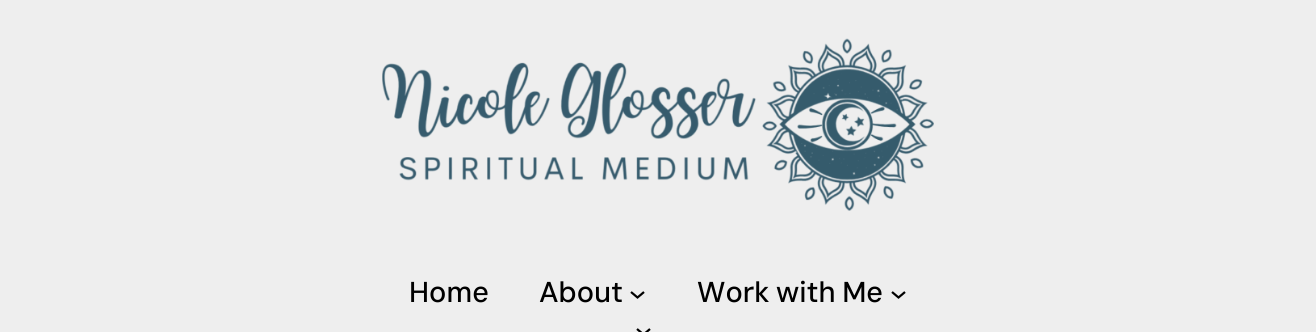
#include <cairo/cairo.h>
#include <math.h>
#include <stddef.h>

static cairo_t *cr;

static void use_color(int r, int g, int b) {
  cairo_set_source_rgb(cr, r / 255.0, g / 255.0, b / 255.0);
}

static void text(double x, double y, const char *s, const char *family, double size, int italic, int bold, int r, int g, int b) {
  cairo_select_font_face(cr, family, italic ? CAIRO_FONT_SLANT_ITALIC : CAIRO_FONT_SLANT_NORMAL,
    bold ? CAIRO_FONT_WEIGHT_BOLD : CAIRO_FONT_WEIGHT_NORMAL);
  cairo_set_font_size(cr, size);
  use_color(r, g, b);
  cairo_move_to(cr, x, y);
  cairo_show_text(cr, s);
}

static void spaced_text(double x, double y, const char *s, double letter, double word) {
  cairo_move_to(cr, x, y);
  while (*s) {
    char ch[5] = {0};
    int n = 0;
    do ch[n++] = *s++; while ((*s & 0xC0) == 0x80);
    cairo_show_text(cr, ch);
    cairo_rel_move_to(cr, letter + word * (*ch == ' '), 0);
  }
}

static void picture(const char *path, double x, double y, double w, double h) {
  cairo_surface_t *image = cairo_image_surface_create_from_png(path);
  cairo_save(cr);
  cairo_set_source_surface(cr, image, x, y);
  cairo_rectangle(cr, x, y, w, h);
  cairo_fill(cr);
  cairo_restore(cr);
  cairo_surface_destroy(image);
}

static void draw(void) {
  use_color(238, 238, 238);
  cairo_paint(cr);
  picture("img_01.png", 382, 38, 552, 173);
  cairo_new_path(cr);
  cairo_move_to(cr, 631, 292);
  cairo_line_to(cr, 637.5, 297.5);
  cairo_line_to(cr, 644, 292);
  use_color(0, 0, 0);
  cairo_set_line_width(cr, 2.2);
  cairo_stroke(cr);
  cairo_new_path(cr);
  cairo_move_to(cr, 892, 292);
  cairo_line_to(cr, 898.5, 297.5);
  cairo_line_to(cr, 905, 292);
  cairo_stroke(cr);
  cairo_new_path(cr);
  cairo_move_to(cr, 637, 329);
  cairo_line_to(cr, 643.5, 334.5);
  cairo_line_to(cr, 650, 329);
  cairo_stroke(cr);
  text(409, 302, "Home", "DM Sans Medium", 28.75, 0, 0, 0, 0, 0);
  text(539, 302, "About", "DM Sans Medium", 28.75, 0, 0, 0, 0, 0);
  spaced_text(697, 302, "Work with Me", 0, -1);
}

int main(void) {
  cairo_surface_t *surface = cairo_image_surface_create(CAIRO_FORMAT_RGB24, 1316, 332);
  cr = cairo_create(surface);
  cairo_font_options_t *options = cairo_font_options_create();
  cairo_font_options_set_hint_metrics(options, CAIRO_HINT_METRICS_OFF);
  cairo_font_options_set_hint_style(options, CAIRO_HINT_STYLE_NONE);
  cairo_set_font_options(cr, options);
  cairo_set_miter_limit(cr, 4);
  draw();
  cairo_surface_write_to_png(surface, "out.png");
  cairo_font_options_destroy(options);
  cairo_destroy(cr);
  cairo_surface_destroy(surface);
  return 0;
}
